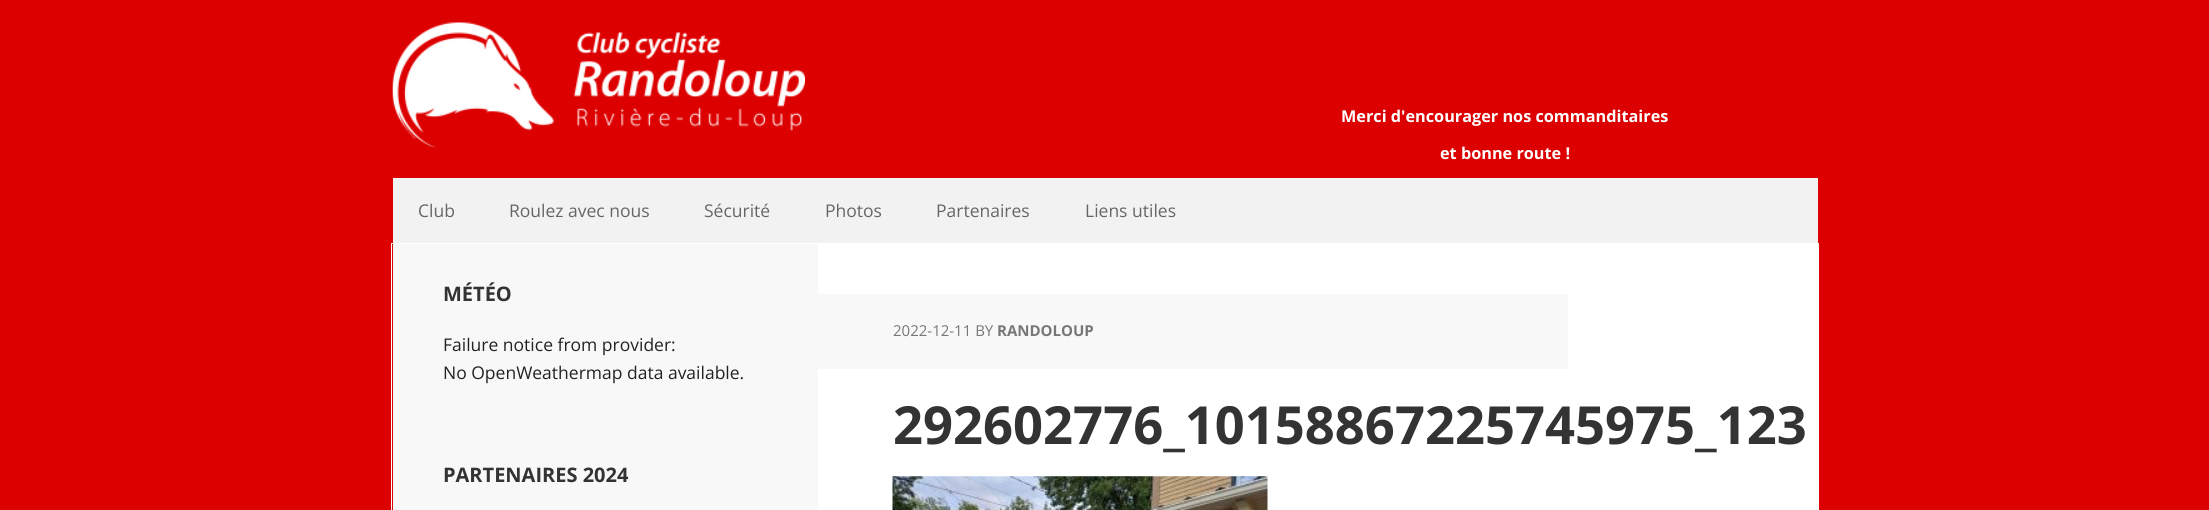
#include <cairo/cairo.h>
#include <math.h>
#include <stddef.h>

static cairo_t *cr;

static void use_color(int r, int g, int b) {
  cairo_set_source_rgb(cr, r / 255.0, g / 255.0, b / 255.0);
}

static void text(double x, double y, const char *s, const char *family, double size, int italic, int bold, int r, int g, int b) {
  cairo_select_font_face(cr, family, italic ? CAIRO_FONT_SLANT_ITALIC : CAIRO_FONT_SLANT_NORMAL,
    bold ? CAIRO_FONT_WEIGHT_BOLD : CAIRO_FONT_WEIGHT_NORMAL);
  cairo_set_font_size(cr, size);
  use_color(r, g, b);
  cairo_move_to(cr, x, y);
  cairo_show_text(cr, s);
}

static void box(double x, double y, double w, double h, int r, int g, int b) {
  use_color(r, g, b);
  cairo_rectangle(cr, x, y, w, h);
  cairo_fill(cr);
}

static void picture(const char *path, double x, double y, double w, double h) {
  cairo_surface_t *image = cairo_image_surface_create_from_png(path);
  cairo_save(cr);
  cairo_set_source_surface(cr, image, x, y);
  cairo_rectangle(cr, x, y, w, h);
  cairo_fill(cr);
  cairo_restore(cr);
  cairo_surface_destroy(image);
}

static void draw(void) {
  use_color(221, 0, 0);
  cairo_paint(cr);
  picture("img_01.png", 392, 22, 413, 126);
  box(393, 178, 1425, 65, 242, 242, 242);
  cairo_rectangle(cr, 391.5, 243.5, 1427, 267);
  use_color(255, 255, 255);
  cairo_set_line_width(cr, 1);
  cairo_stroke(cr);
  box(818, 244, 1000, 266, 255, 255, 255);
  box(393, 244, 425, 266, 248, 248, 248);
  box(818, 294, 750, 75, 248, 248, 248);
  picture("img_02.png", 892, 476, 376, 34);
  text(1341, 122, "Merci d'encourager nos commanditaires", "Open Sans", 16.25, 0, 1, 255, 255, 255);
  text(1440, 159, "et bonne route !", "Open Sans", 16.25, 0, 1, 255, 255, 255);
  text(418, 217, "Club", "Open Sans", 17.5, 0, 0, 102, 102, 102);
  text(509, 217, "Roulez avec nous", "Open Sans", 17.5, 0, 0, 102, 102, 102);
  text(704, 217, "Sécurité", "Open Sans", 17.5, 0, 0, 102, 102, 102);
  text(825, 217, "Photos", "Open Sans", 17.5, 0, 0, 102, 102, 102);
  text(936, 217, "Partenaires", "Open Sans", 17.5, 0, 0, 102, 102, 102);
  text(1085, 217, "Liens utiles", "Open Sans", 17.5, 0, 0, 102, 102, 102);
  text(443, 301, "MÉTÉO", "Open Sans", 20, 0, 1, 51, 51, 51);
  text(443, 351, "Failure notice from provider:", "Open Sans", 17.5, 0, 0, 34, 34, 34);
  text(443, 379, "No OpenWeathermap data available.", "Open Sans", 17.5, 0, 0, 34, 34, 34);
  text(443, 482, "PARTENAIRES 2024", "Open Sans", 20, 0, 1, 51, 51, 51);
  text(893, 336, "2022-12-11 BY", "Open Sans", 15, 0, 0, 119, 119, 119);
  text(997, 336, "RANDOLOUP", "Open Sans", 15, 0, 1, 119, 119, 119);
  text(893, 444, "292602776_10158867225745975_123", "Open Sans", 52.5, 0, 1, 51, 51, 51);
}

int main(void) {
  cairo_surface_t *surface = cairo_image_surface_create(CAIRO_FORMAT_RGB24, 2209, 510);
  cr = cairo_create(surface);
  cairo_font_options_t *options = cairo_font_options_create();
  cairo_font_options_set_hint_metrics(options, CAIRO_HINT_METRICS_OFF);
  cairo_font_options_set_hint_style(options, CAIRO_HINT_STYLE_NONE);
  cairo_set_font_options(cr, options);
  cairo_set_miter_limit(cr, 4);
  draw();
  cairo_surface_write_to_png(surface, "out.png");
  cairo_font_options_destroy(options);
  cairo_destroy(cr);
  cairo_surface_destroy(surface);
  return 0;
}
